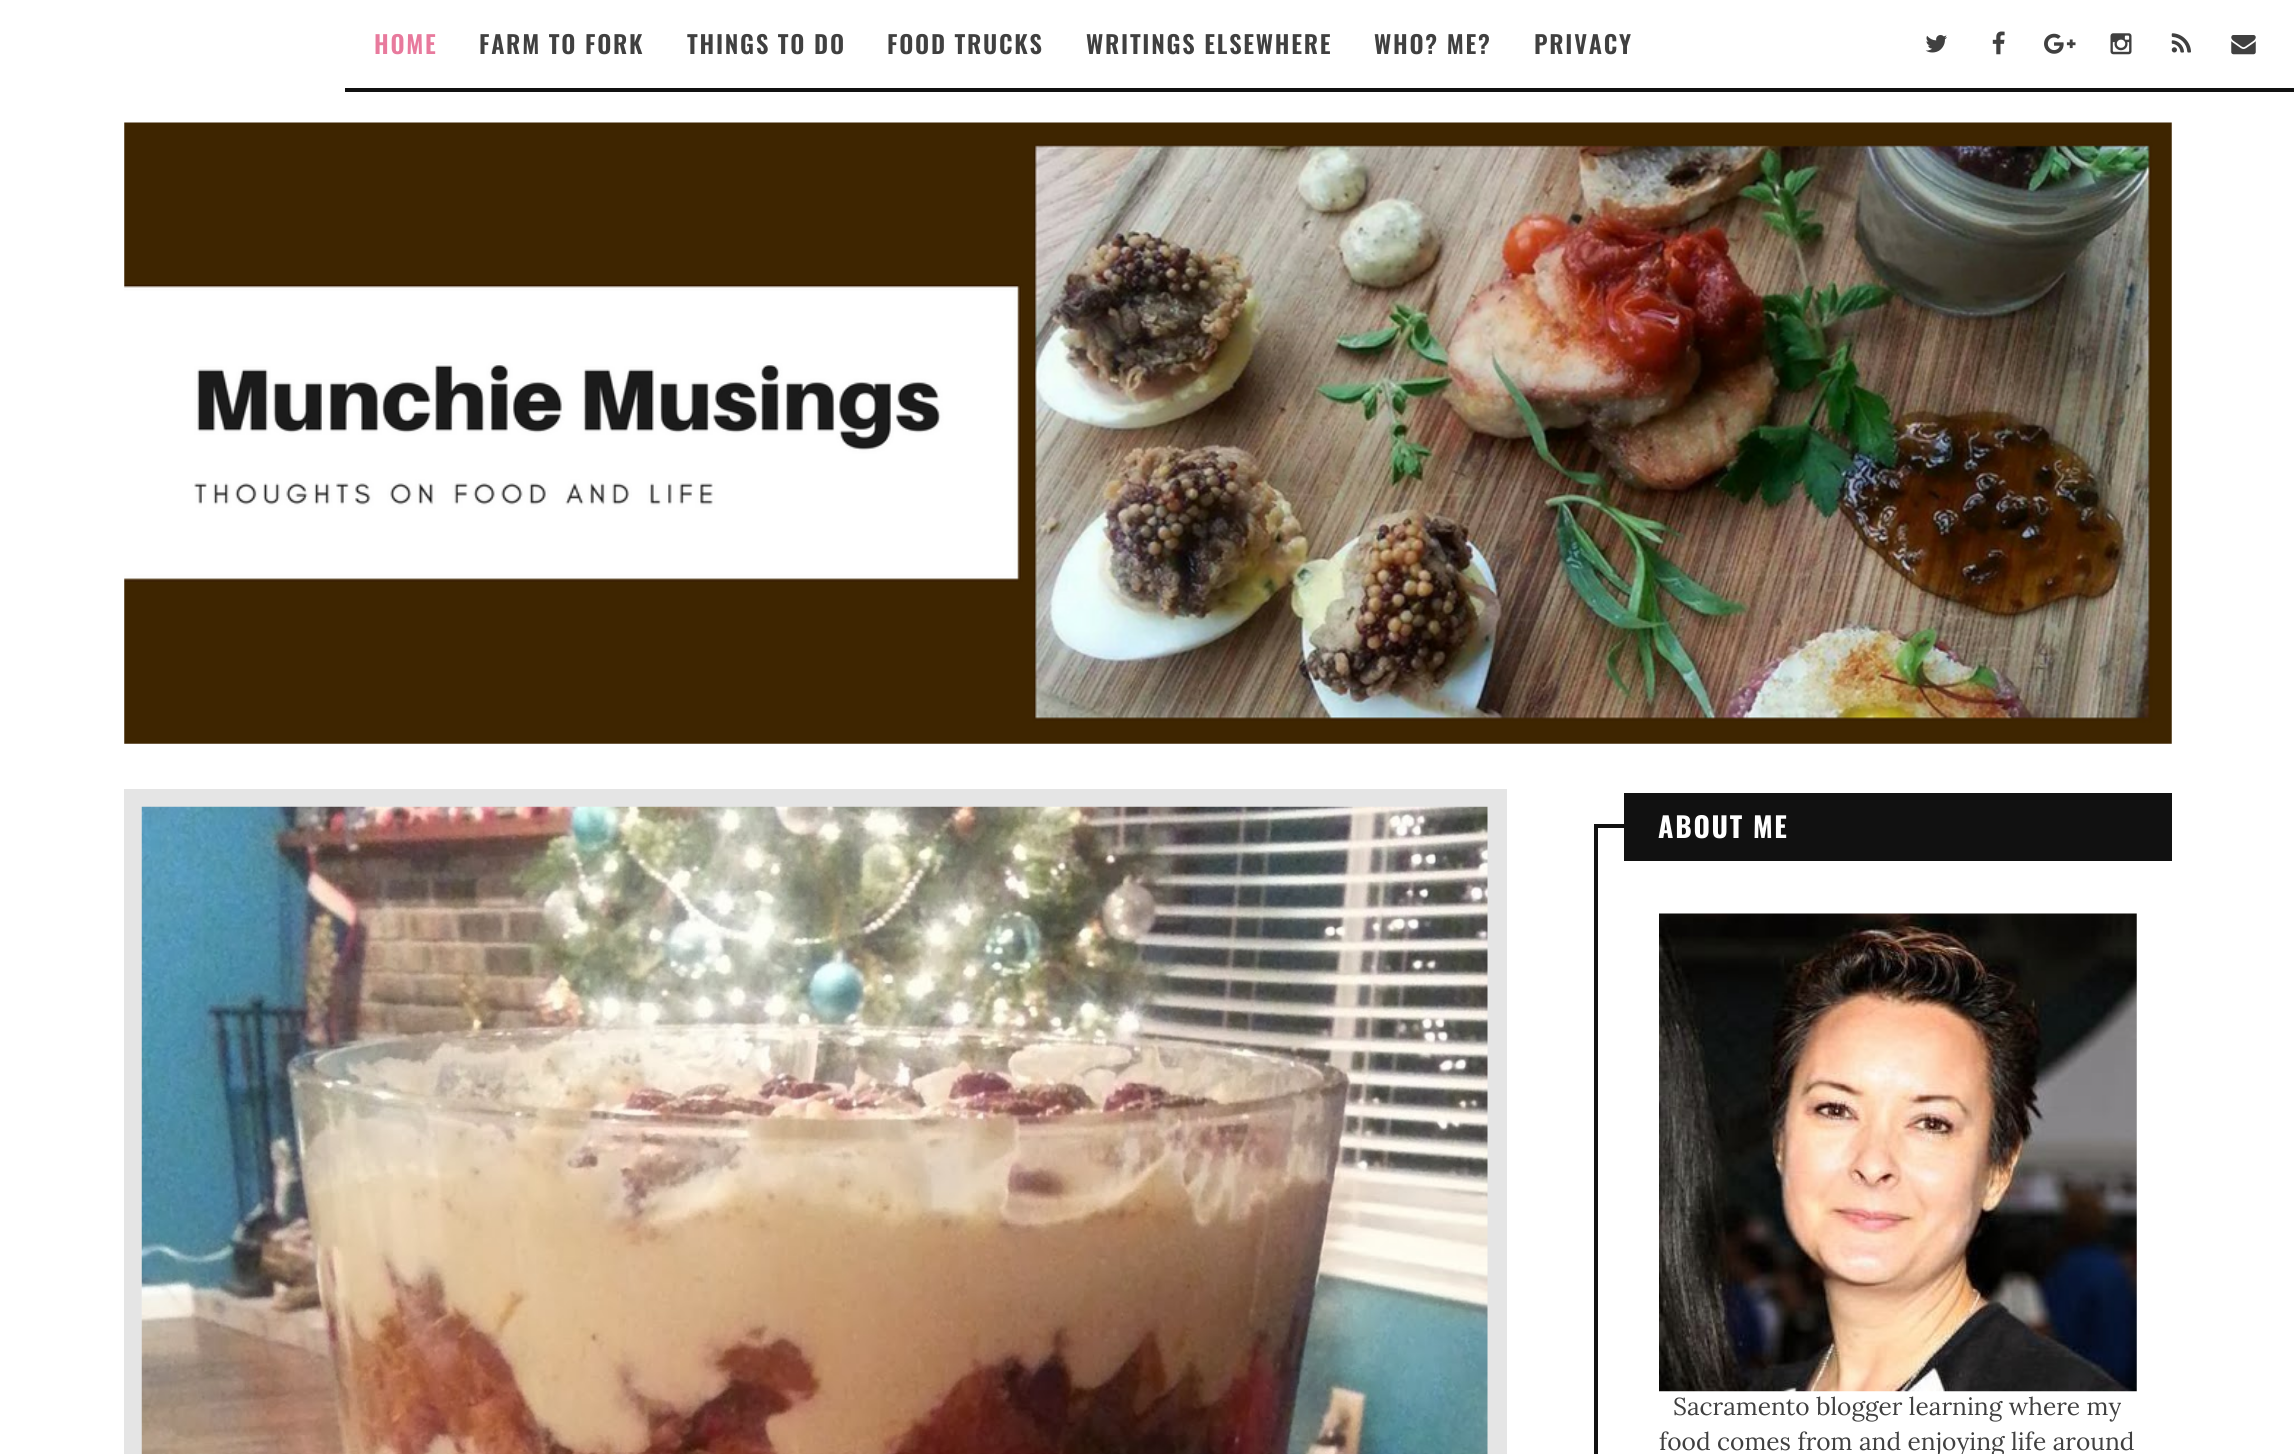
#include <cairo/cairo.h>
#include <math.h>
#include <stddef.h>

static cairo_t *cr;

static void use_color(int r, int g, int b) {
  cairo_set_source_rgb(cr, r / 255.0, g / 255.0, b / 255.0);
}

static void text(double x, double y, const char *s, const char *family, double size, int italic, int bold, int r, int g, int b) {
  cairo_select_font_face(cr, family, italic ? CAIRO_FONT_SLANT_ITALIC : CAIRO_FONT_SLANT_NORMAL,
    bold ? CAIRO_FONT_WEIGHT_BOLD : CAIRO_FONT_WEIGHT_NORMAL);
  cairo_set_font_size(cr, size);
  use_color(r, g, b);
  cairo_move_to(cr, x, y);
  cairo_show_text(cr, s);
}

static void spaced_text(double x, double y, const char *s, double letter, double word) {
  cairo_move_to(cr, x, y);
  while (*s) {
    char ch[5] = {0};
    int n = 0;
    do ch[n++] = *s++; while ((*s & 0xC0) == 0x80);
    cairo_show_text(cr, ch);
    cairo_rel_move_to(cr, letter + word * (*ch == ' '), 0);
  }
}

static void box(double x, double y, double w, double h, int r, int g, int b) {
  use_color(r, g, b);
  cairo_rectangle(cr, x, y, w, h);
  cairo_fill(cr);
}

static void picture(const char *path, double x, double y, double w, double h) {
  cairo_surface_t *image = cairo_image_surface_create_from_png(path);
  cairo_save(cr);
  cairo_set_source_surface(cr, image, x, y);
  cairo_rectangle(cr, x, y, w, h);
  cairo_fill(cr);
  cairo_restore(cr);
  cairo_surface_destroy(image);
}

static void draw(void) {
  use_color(255, 255, 255);
  cairo_paint(cr);
  box(345, 88, 1949, 4, 17, 17, 17);
  picture("img_01.png", 1925, 35, 22, 18);
  picture("img_02.png", 1992, 31, 13, 24);
  picture("img_03.png", 2044, 33, 32, 21);
  picture("img_04.png", 2110, 33, 22, 22);
  picture("img_05.png", 2171, 33, 20, 20);
  picture("img_06.png", 2231, 35, 25, 20);
  picture("img_07.png", 124, 122, 2048, 622);
  box(124, 789, 1383, 665, 229, 229, 229);
  picture("img_08.png", 141, 806, 1347, 648);
  box(1594, 824, 30, 4, 17, 17, 17);
  box(1594, 824, 4, 630, 17, 17, 17);
  box(1624, 793, 548, 68, 17, 17, 17);
  picture("img_09.png", 1659, 913, 478, 479);
  cairo_select_font_face(cr, "Oswald SemiBold", CAIRO_FONT_SLANT_NORMAL, CAIRO_FONT_WEIGHT_NORMAL);
  cairo_set_font_size(cr, 24.5);
  use_color(232, 122, 157);
  spaced_text(374, 54, "HOME", 1.75, 0);
  use_color(64, 64, 64);
  spaced_text(479, 54, "FARM TO FORK", 1.75, 0);
  spaced_text(687, 54, "THINGS TO DO", 1.75, 0);
  spaced_text(887, 54, "FOOD TRUCKS", 1.75, 0);
  spaced_text(1086, 54, "WRITINGS ELSEWHERE", 1.75, 0);
  spaced_text(1374, 54, "WHO? ME?", 1.75, 0);
  spaced_text(1534, 54, "PRIVACY", 1.75, 0);
  cairo_select_font_face(cr, "Oswald", CAIRO_FONT_SLANT_NORMAL, CAIRO_FONT_WEIGHT_BOLD);
  cairo_set_font_size(cr, 28);
  use_color(255, 255, 255);
  spaced_text(1658, 838, "ABOUT ME", 1.75, 0);
  text(1673, 1415, "Sacramento blogger learning where my", "Lora", 24.5, 0, 0, 64, 64, 64);
  text(1659, 1450, "food comes from and enjoying life around", "Lora", 24.5, 0, 0, 64, 64, 64);
}

int main(void) {
  cairo_surface_t *surface = cairo_image_surface_create(CAIRO_FORMAT_RGB24, 2294, 1454);
  cr = cairo_create(surface);
  cairo_font_options_t *options = cairo_font_options_create();
  cairo_font_options_set_hint_metrics(options, CAIRO_HINT_METRICS_OFF);
  cairo_font_options_set_hint_style(options, CAIRO_HINT_STYLE_NONE);
  cairo_set_font_options(cr, options);
  cairo_set_miter_limit(cr, 4);
  draw();
  cairo_surface_write_to_png(surface, "out.png");
  cairo_font_options_destroy(options);
  cairo_destroy(cr);
  cairo_surface_destroy(surface);
  return 0;
}
